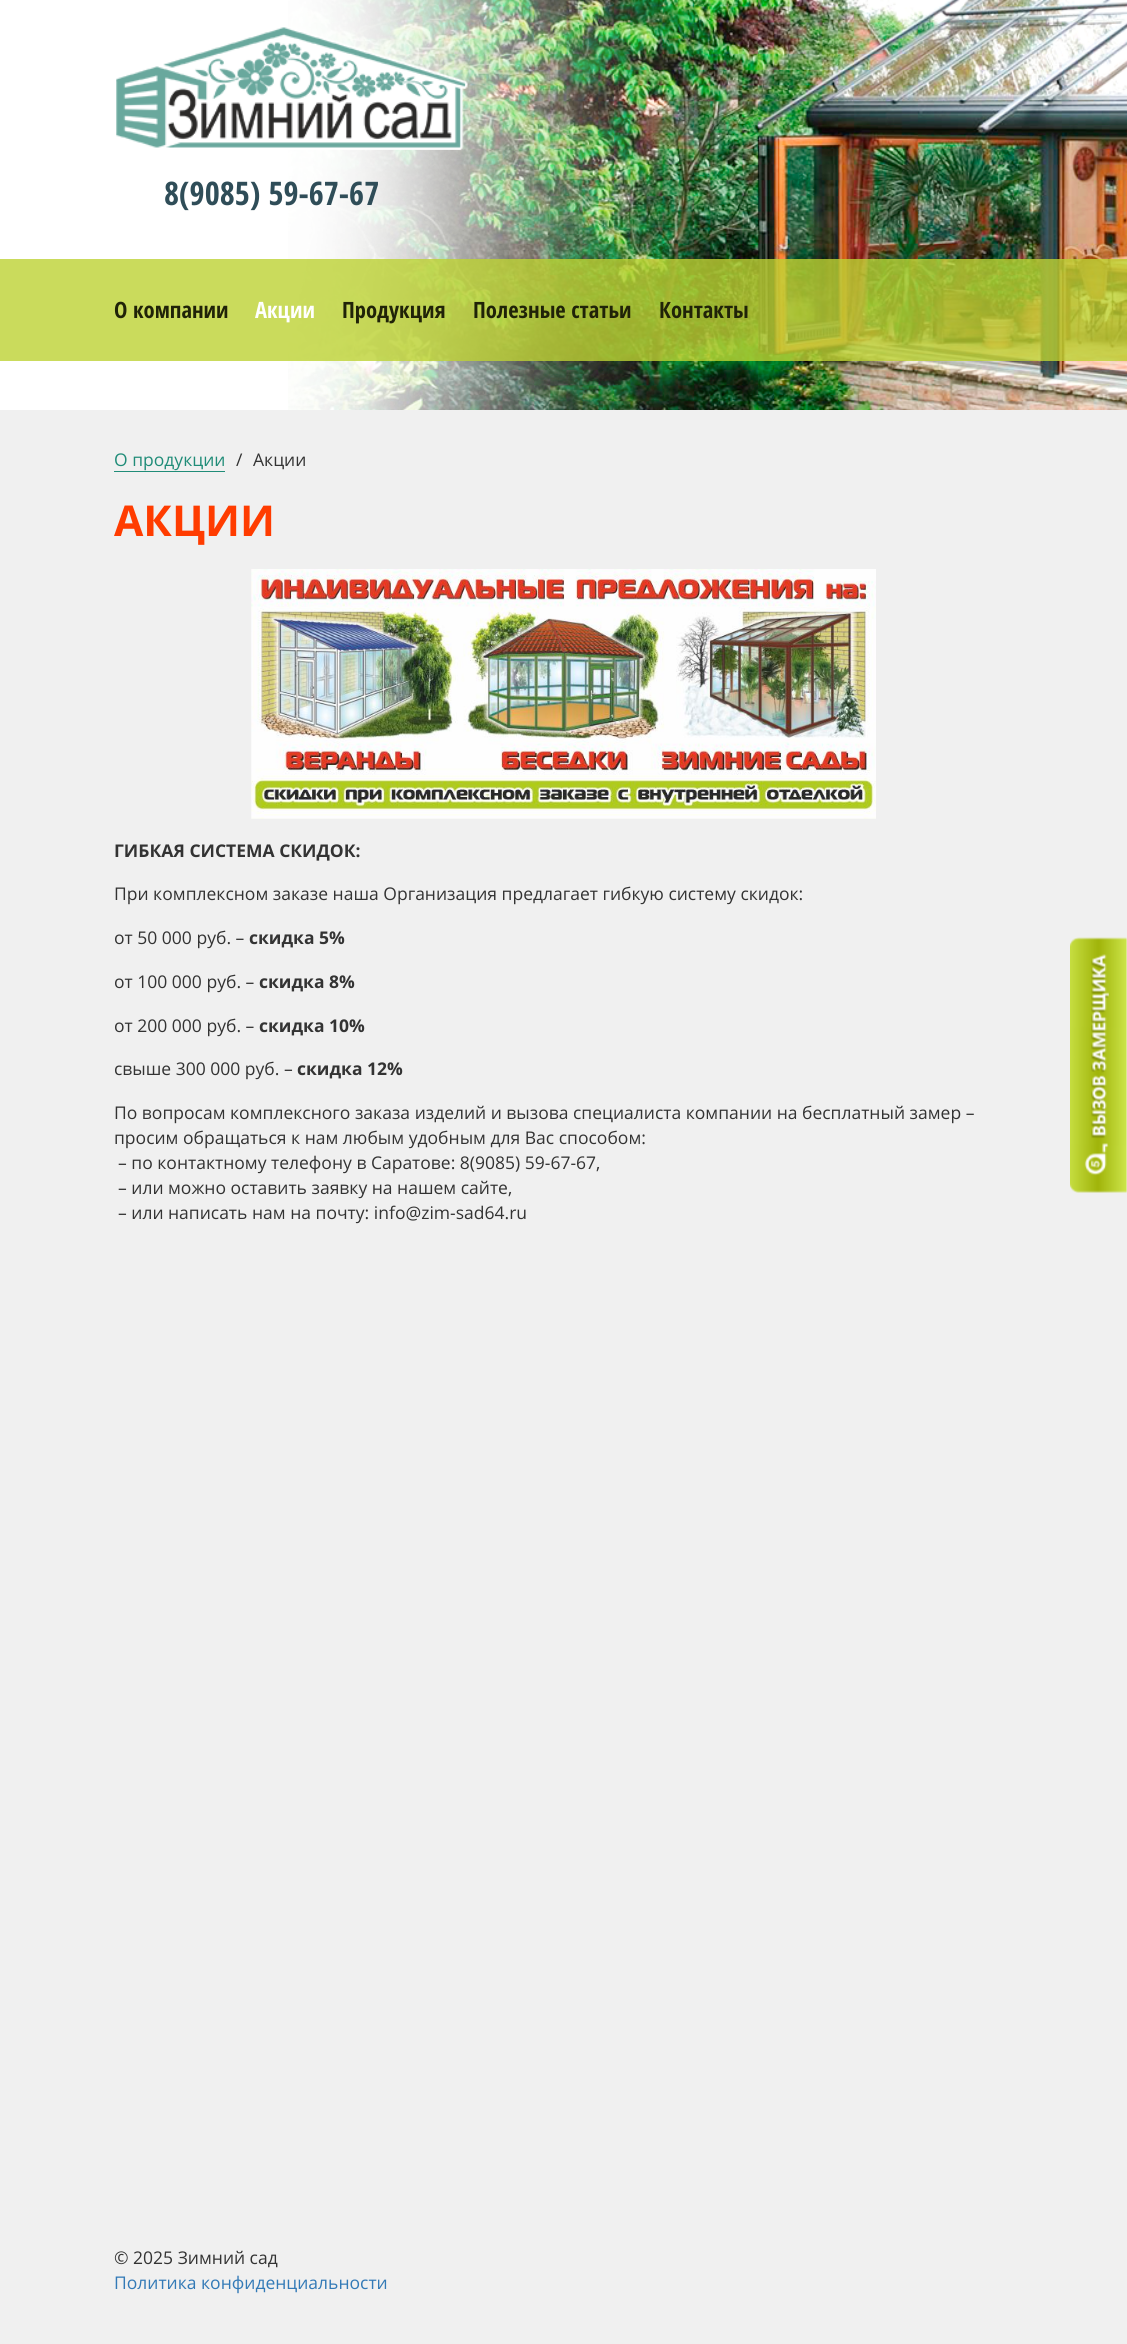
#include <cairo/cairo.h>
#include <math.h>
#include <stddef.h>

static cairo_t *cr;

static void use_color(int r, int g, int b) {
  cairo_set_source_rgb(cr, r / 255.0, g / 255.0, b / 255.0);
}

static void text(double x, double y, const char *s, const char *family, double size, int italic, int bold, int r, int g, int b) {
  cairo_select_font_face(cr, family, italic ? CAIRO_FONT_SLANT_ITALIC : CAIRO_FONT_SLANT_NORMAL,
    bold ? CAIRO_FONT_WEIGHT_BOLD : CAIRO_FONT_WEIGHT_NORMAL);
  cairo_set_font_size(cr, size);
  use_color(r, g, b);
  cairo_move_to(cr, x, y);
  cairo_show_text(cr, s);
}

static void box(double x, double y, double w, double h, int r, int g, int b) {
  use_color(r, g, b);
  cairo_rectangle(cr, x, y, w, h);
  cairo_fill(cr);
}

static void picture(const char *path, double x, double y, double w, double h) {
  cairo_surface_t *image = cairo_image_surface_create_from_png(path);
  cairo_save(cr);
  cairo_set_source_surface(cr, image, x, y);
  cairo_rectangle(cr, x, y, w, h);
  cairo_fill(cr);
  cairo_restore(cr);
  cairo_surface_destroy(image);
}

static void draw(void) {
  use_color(240, 240, 240);
  cairo_paint(cr);
  box(0, 0, 806, 410, 255, 255, 255);
  picture("img_01.png", 288, 0, 839, 410);
  picture("img_02.png", 116, 27, 352, 123);
  cairo_set_source_rgba(cr, 0.741, 0.824, 0.204, 0.8);
  cairo_rectangle(cr, 0, 259, 1127, 102);
  cairo_fill(cr);
  box(114, 471, 111, 1, 32, 140, 120);
  picture("img_03.png", 251, 569, 625, 250);
  picture("img_04.png", 1070, 937, 57, 256);
  text(164, 205, "8(9085) 59-67-67", "Open Sans Condensed", 32.5, 0, 1, 47, 77, 88);
  text(114, 318, "О компании", "Open Sans Condensed", 22.5, 0, 1, 32, 35, 8);
  text(255, 318, "Акции", "Open Sans Condensed", 22.5, 0, 1, 255, 255, 255);
  text(342, 318, "Продукция", "Open Sans Condensed", 22.5, 0, 1, 32, 35, 8);
  text(473, 318, "Полезные статьи", "Open Sans Condensed", 22.5, 0, 1, 32, 35, 8);
  text(659, 318, "Контакты", "Open Sans Condensed", 22.5, 0, 1, 32, 35, 8);
  text(114, 466, "О продукции", "Open Sans", 17.5, 0, 0, 32, 140, 120);
  text(236, 466, "/", "Open Sans", 17.5, 0, 0, 51, 51, 51);
  text(253, 466, "Акции", "Open Sans", 17.5, 0, 0, 51, 51, 51);
  text(114, 536, "АКЦИИ", "Open Sans", 42.5, 0, 1, 255, 60, 0);
  text(114, 857, "ГИБКАЯ СИСТЕМА СКИДОК:", "Open Sans", 17.5, 0, 1, 51, 51, 51);
  text(114, 900, "При комплексном заказе наша Организация предлагает гибкую систему скидок:", "Open Sans", 17.5, 0, 0, 51, 51, 51);
  text(114, 944, "от 50 000 руб. –", "Open Sans", 17.5, 0, 0, 51, 51, 51);
  text(249, 944, "скидка 5%", "Open Sans", 17.5, 0, 1, 51, 51, 51);
  text(114, 988, "от 100 000 руб. –", "Open Sans", 17.5, 0, 0, 51, 51, 51);
  text(259, 988, "скидка 8%", "Open Sans", 17.5, 0, 1, 51, 51, 51);
  text(114, 1032, "от 200 000 руб. –", "Open Sans", 17.5, 0, 0, 51, 51, 51);
  text(259, 1032, "cкидка 10%", "Open Sans", 17.5, 0, 1, 51, 51, 51);
  text(114, 1075, "свыше 300 000 руб. –", "Open Sans", 17.5, 0, 0, 51, 51, 51);
  text(297, 1075, "скидка 12%", "Open Sans", 17.5, 0, 1, 51, 51, 51);
  text(114, 1119, "По вопросам комплексного заказа изделий и вызова специалиста компании на бесплатный замер –", "Open Sans", 17.5, 0, 0, 51, 51, 51);
  text(114, 1144, "просим обращаться к нам любым удобным для Вас способом:", "Open Sans", 17.5, 0, 0, 51, 51, 51);
  text(118, 1169, "– по контактному телефону в Саратове: 8(9085) 59-67-67,", "Open Sans", 17.5, 0, 0, 51, 51, 51);
  text(118, 1194, "– или можно оставить заявку на нашем сайте,", "Open Sans", 17.5, 0, 0, 51, 51, 51);
  text(118, 1219, "– или написать нам на почту: info@zim-sad64.ru", "Open Sans", 17.5, 0, 0, 51, 51, 51);
  text(114, 2264, "© 2025 Зимний сад", "Open Sans", 17.5, 0, 0, 51, 51, 51);
  text(114, 2289, "Политика конфиденциальности", "Open Sans", 17.5, 0, 0, 51, 122, 183);
}

int main(void) {
  cairo_surface_t *surface = cairo_image_surface_create(CAIRO_FORMAT_RGB24, 1127, 2344);
  cr = cairo_create(surface);
  cairo_font_options_t *options = cairo_font_options_create();
  cairo_font_options_set_hint_metrics(options, CAIRO_HINT_METRICS_OFF);
  cairo_font_options_set_hint_style(options, CAIRO_HINT_STYLE_NONE);
  cairo_set_font_options(cr, options);
  cairo_set_miter_limit(cr, 4);
  draw();
  cairo_surface_write_to_png(surface, "out.png");
  cairo_font_options_destroy(options);
  cairo_destroy(cr);
  cairo_surface_destroy(surface);
  return 0;
}
